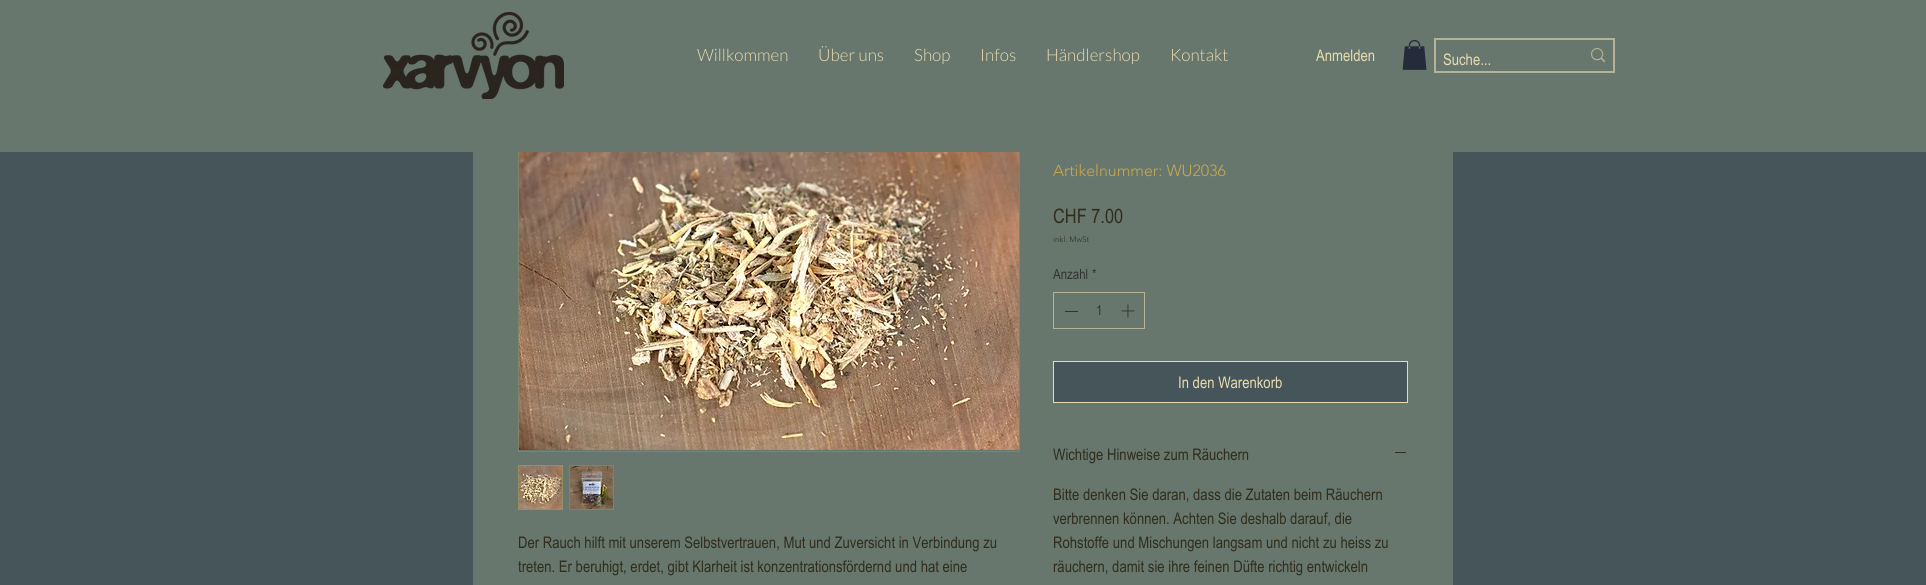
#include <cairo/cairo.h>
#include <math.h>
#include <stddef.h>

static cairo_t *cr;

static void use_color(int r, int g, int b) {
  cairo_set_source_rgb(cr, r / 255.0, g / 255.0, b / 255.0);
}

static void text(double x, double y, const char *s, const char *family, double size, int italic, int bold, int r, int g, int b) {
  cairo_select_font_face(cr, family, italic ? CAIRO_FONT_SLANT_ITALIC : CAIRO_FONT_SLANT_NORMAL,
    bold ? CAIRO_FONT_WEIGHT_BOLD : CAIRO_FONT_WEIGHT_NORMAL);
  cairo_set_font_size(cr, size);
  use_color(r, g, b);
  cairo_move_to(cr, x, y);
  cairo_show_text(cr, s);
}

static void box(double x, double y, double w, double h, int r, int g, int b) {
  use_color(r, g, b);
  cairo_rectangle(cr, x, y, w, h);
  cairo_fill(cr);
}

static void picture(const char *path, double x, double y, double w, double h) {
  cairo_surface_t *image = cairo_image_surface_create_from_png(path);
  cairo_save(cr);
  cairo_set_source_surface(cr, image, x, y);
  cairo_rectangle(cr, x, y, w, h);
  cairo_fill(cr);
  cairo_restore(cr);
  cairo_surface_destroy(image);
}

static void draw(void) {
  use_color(70, 85, 89);
  cairo_paint(cr);
  box(473, 152, 980, 433, 103, 119, 110);
  cairo_rectangle(cr, 518.5, 116.5, 501, 335);
  use_color(128, 131, 102);
  cairo_set_line_width(cr, 1);
  cairo_stroke(cr);
  box(0, 0, 1926, 152, 103, 119, 110);
  picture("img_01.png", 383, 12, 181, 87);
  picture("img_02.png", 1402, 40, 25, 30);
  cairo_rectangle(cr, 1435, 39, 179, 33);
  use_color(180, 179, 150);
  cairo_set_line_width(cr, 2);
  cairo_stroke(cr);
  picture("img_03.png", 1591, 48, 14, 15);
  picture("img_04.png", 519, 152, 500, 298);
  cairo_rectangle(cr, 518.5, 465.5, 44, 44);
  use_color(152, 143, 94);
  cairo_set_line_width(cr, 1);
  cairo_stroke(cr);
  picture("img_05.png", 519, 466, 43, 43);
  box(569, 465, 45, 45, 128, 131, 102);
  picture("img_06.png", 570, 466, 43, 43);
  cairo_rectangle(cr, 1053.5, 292.5, 91, 36);
  use_color(180, 179, 150);
  cairo_stroke(cr);
  box(1065, 311, 13, 1, 51, 51, 51);
  picture("img_07.png", 1121, 304, 14, 14);
  use_color(70, 85, 89);
  cairo_rectangle(cr, 1053.5, 361.5, 354, 41);
  cairo_fill_preserve(cr);
  use_color(232, 219, 176);
  cairo_stroke(cr);
  box(1395, 452, 11, 1, 48, 45, 27);
  text(697, 61, "Willkommen", "Lato Light", 17, 0, 0, 232, 219, 176);
  text(818, 61, "Über uns", "Lato Light", 17, 0, 0, 232, 219, 176);
  text(914, 61, "Shop", "Lato Light", 17, 0, 0, 232, 219, 176);
  text(980, 61, "Infos", "Lato Light", 17, 0, 0, 232, 219, 176);
  text(1046, 61, "Händlershop", "Lato Light", 17, 0, 0, 232, 219, 176);
  text(1170, 61, "Kontakt", "Lato Light", 17, 0, 0, 232, 219, 176);
  text(1316, 61, "Anmelden", "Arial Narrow", 16, 0, 0, 232, 219, 176);
  text(1443, 65, "Suche...", "Arial Narrow", 16, 0, 0, 232, 219, 176);
  text(518, 548, "Der Rauch hilft mit unserem Selbstvertrauen, Mut und Zuversicht in Verbindung zu", "Arial Narrow", 16, 0, 0, 48, 45, 27);
  text(518, 572, "treten. Er beruhigt, erdet, gibt Klarheit ist konzentrationsfördernd und hat eine", "Arial Narrow", 16, 0, 0, 48, 45, 27);
  text(1053, 176, "Artikelnummer: WU2036", "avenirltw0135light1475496 Light", 16, 0, 0, 201, 166, 77);
  text(1053, 223, "CHF 7.00", "Arial Narrow", 20, 0, 0, 48, 45, 27);
  text(1053, 242, "inkl. MwSt", "avenirltw0135light1475496 Light", 8, 0, 0, 48, 45, 27);
  text(1053, 279, "Anzahl", "Arial Narrow", 14, 0, 0, 51, 51, 51);
  text(1092, 279, "*", "Arial Narrow", 14, 0, 0, 51, 51, 51);
  text(1096, 315, "1", "Arial Narrow", 14, 0, 0, 51, 51, 51);
  text(1178, 388, "In den Warenkorb", "Arial Narrow", 16, 0, 0, 232, 219, 176);
  text(1053, 460, "Wichtige Hinweise zum Räuchern", "Arial Narrow", 16, 0, 0, 48, 45, 27);
  text(1053, 500, "Bitte denken Sie daran, dass die Zutaten beim Räuchern", "Arial Narrow", 16, 0, 0, 48, 45, 27);
  text(1053, 524, "verbrennen können. Achten Sie deshalb darauf, die", "Arial Narrow", 16, 0, 0, 48, 45, 27);
  text(1053, 548, "Rohstoffe und Mischungen langsam und nicht zu heiss zu", "Arial Narrow", 16, 0, 0, 48, 45, 27);
  text(1053, 572, "räuchern, damit sie ihre feinen Düfte richtig entwickeln", "Arial Narrow", 16, 0, 0, 48, 45, 27);
}

int main(void) {
  cairo_surface_t *surface = cairo_image_surface_create(CAIRO_FORMAT_RGB24, 1926, 585);
  cr = cairo_create(surface);
  cairo_font_options_t *options = cairo_font_options_create();
  cairo_font_options_set_hint_metrics(options, CAIRO_HINT_METRICS_OFF);
  cairo_font_options_set_hint_style(options, CAIRO_HINT_STYLE_NONE);
  cairo_set_font_options(cr, options);
  cairo_set_miter_limit(cr, 4);
  draw();
  cairo_surface_write_to_png(surface, "out.png");
  cairo_font_options_destroy(options);
  cairo_destroy(cr);
  cairo_surface_destroy(surface);
  return 0;
}
